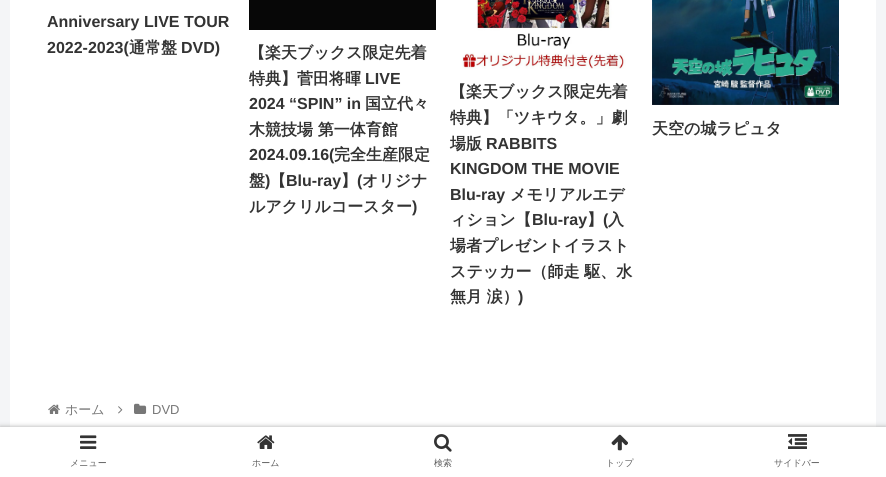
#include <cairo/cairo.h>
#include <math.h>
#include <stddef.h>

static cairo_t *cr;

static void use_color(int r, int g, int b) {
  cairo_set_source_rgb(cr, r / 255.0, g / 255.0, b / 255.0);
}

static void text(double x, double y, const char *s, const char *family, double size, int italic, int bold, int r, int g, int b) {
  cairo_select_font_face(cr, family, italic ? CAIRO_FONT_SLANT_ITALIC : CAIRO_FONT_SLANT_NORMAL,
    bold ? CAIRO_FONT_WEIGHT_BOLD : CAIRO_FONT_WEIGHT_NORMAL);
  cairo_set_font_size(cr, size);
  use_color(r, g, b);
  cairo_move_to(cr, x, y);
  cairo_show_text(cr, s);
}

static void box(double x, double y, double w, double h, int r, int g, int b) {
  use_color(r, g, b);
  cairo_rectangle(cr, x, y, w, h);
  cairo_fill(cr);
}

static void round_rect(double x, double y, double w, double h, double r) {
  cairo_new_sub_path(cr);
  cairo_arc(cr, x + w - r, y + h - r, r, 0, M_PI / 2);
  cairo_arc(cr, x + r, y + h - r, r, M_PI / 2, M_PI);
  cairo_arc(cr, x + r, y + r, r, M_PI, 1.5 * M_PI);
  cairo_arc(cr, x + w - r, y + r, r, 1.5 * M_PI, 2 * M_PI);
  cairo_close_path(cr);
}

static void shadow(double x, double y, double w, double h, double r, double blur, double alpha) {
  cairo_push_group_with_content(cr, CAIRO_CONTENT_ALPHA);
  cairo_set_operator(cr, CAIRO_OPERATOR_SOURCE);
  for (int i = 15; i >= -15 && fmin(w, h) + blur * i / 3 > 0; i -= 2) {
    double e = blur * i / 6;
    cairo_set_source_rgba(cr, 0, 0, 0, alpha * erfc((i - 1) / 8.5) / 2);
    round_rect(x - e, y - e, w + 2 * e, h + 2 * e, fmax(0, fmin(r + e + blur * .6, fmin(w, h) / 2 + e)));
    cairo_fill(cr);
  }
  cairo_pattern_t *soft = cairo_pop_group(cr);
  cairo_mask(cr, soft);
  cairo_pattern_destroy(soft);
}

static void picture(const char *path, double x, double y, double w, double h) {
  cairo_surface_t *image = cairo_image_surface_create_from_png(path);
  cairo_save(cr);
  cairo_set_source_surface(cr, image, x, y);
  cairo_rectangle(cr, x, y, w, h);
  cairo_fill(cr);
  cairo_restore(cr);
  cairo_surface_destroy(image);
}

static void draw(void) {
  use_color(244, 245, 247);
  cairo_paint(cr);
  box(10, 0, 866, 427, 255, 255, 255);
  box(249, 0, 187, 30, 7, 7, 7);
  picture("img_01.png", 462, 0, 164, 69);
  picture("img_02.png", 652, 0, 187, 105);
  picture("img_03.png", 48, 404, 12, 10);
  picture("img_04.png", 118, 406, 5, 8);
  picture("img_05.png", 134, 403, 13, 11);
  use_color(169, 169, 169);
  shadow(0, 427, 886, 50, 0, 2.5, 1);
  box(0, 427, 886, 50, 255, 255, 255);
  picture("img_06.png", 80, 435, 17, 14);
  picture("img_07.png", 257, 435, 18, 14);
  picture("img_08.png", 434, 434, 18, 18);
  picture("img_09.png", 611, 434, 17, 17);
  picture("img_10.png", 788, 434, 19, 15);
  text(47, 27, "Anniversary LIVE TOUR", "Liberation Sans", 16, 0, 1, 51, 51, 51);
  text(47, 53, "2022-2023(", "Liberation Sans", 16, 0, 1, 51, 51, 51);
  text(129, 53, "通常盤", "WenQuanYi Zen Hei", 16, 0, 1, 51, 51, 51);
  text(181, 53, "DVD)", "Liberation Sans", 16, 0, 1, 51, 51, 51);
  text(249, 58, "【楽天ブックス限定先着", "WenQuanYi Zen Hei", 16, 0, 1, 51, 51, 51);
  text(249, 84, "特典】菅田将暉", "WenQuanYi Zen Hei", 16, 0, 1, 51, 51, 51);
  text(365, 84, "LIVE", "Liberation Sans", 16, 0, 1, 51, 51, 51);
  text(249, 109, "2024 “SPIN” in", "Liberation Sans", 16, 0, 1, 51, 51, 51);
  text(365, 109, "国立代々", "WenQuanYi Zen Hei", 16, 0, 1, 51, 51, 51);
  text(249, 135, "木競技場 第一体育館", "WenQuanYi Zen Hei", 16, 0, 1, 51, 51, 51);
  text(249, 160, "2024.09.16(", "Liberation Sans", 16, 0, 1, 51, 51, 51);
  text(334, 160, "完全生産限定", "WenQuanYi Zen Hei", 16, 0, 1, 51, 51, 51);
  text(249, 186, "盤", "WenQuanYi Zen Hei", 16, 0, 1, 51, 51, 51);
  text(265, 186, ")", "Liberation Sans", 16, 0, 1, 51, 51, 51);
  text(270, 186, "【", "WenQuanYi Zen Hei", 16, 0, 1, 51, 51, 51);
  text(286, 186, "Blu-ray", "Liberation Sans", 16, 0, 1, 51, 51, 51);
  text(341, 186, "】", "WenQuanYi Zen Hei", 16, 0, 1, 51, 51, 51);
  text(357, 186, "(", "Liberation Sans", 16, 0, 1, 51, 51, 51);
  text(362, 186, "オリジナ", "WenQuanYi Zen Hei", 16, 0, 1, 51, 51, 51);
  text(249, 212, "ルアクリルコースター", "WenQuanYi Zen Hei", 16, 0, 1, 51, 51, 51);
  text(412, 212, ")", "Liberation Sans", 16, 0, 1, 51, 51, 51);
  text(450, 97, "【楽天ブックス限定先着", "WenQuanYi Zen Hei", 16, 0, 1, 51, 51, 51);
  text(450, 123, "特典】「ツキウタ。」劇", "WenQuanYi Zen Hei", 16, 0, 1, 51, 51, 51);
  text(450, 149, "場版", "WenQuanYi Zen Hei", 16, 0, 1, 51, 51, 51);
  text(486, 149, "RABBITS", "Liberation Sans", 16, 0, 1, 51, 51, 51);
  text(450, 174, "KINGDOM THE MOVIE", "Liberation Sans", 16, 0, 1, 51, 51, 51);
  text(450, 200, "Blu-ray", "Liberation Sans", 16, 0, 1, 51, 51, 51);
  text(510, 200, "メモリアルエデ", "WenQuanYi Zen Hei", 16, 0, 1, 51, 51, 51);
  text(450, 225, "ィション【", "WenQuanYi Zen Hei", 16, 0, 1, 51, 51, 51);
  text(532, 225, "Blu-ray", "Liberation Sans", 16, 0, 1, 51, 51, 51);
  text(587, 225, "】", "WenQuanYi Zen Hei", 16, 0, 1, 51, 51, 51);
  text(603, 225, "(", "Liberation Sans", 16, 0, 1, 51, 51, 51);
  text(608, 225, "入", "WenQuanYi Zen Hei", 16, 0, 1, 51, 51, 51);
  text(450, 251, "場者プレゼントイラスト", "WenQuanYi Zen Hei", 16, 0, 1, 51, 51, 51);
  text(450, 277, "ステッカー（師走 駆、水", "WenQuanYi Zen Hei", 16, 0, 1, 51, 51, 51);
  text(450, 302, "無月 涙）", "WenQuanYi Zen Hei", 16, 0, 1, 51, 51, 51);
  text(518, 302, ")", "Liberation Sans", 16, 0, 1, 51, 51, 51);
  text(652, 134, "天空の城ラピュタ", "WenQuanYi Zen Hei", 16, 0, 1, 51, 51, 51);
  text(65, 414, "ホーム", "WenQuanYi Zen Hei Medium", 13, 0, 0, 119, 119, 119);
  text(152, 414, "DVD", "Liberation Sans", 13, 0, 0, 119, 119, 119);
  text(70, 466, "メニュー", "WenQuanYi Zen Hei Medium", 9, 0, 0, 92, 92, 92);
  text(252, 466, "ホーム", "WenQuanYi Zen Hei Medium", 9, 0, 0, 92, 92, 92);
  text(434, 466, "検索", "WenQuanYi Zen Hei Medium", 9, 0, 0, 92, 92, 92);
  text(606, 466, "トップ", "WenQuanYi Zen Hei Medium", 9, 0, 0, 92, 92, 92);
  text(774, 466, "サイドバー", "WenQuanYi Zen Hei Medium", 9, 0, 0, 92, 92, 92);
}

int main(void) {
  cairo_surface_t *surface = cairo_image_surface_create(CAIRO_FORMAT_RGB24, 886, 477);
  cr = cairo_create(surface);
  cairo_font_options_t *options = cairo_font_options_create();
  cairo_font_options_set_hint_metrics(options, CAIRO_HINT_METRICS_OFF);
  cairo_font_options_set_hint_style(options, CAIRO_HINT_STYLE_NONE);
  cairo_set_font_options(cr, options);
  cairo_set_miter_limit(cr, 4);
  draw();
  cairo_surface_write_to_png(surface, "out.png");
  cairo_font_options_destroy(options);
  cairo_destroy(cr);
  cairo_surface_destroy(surface);
  return 0;
}
